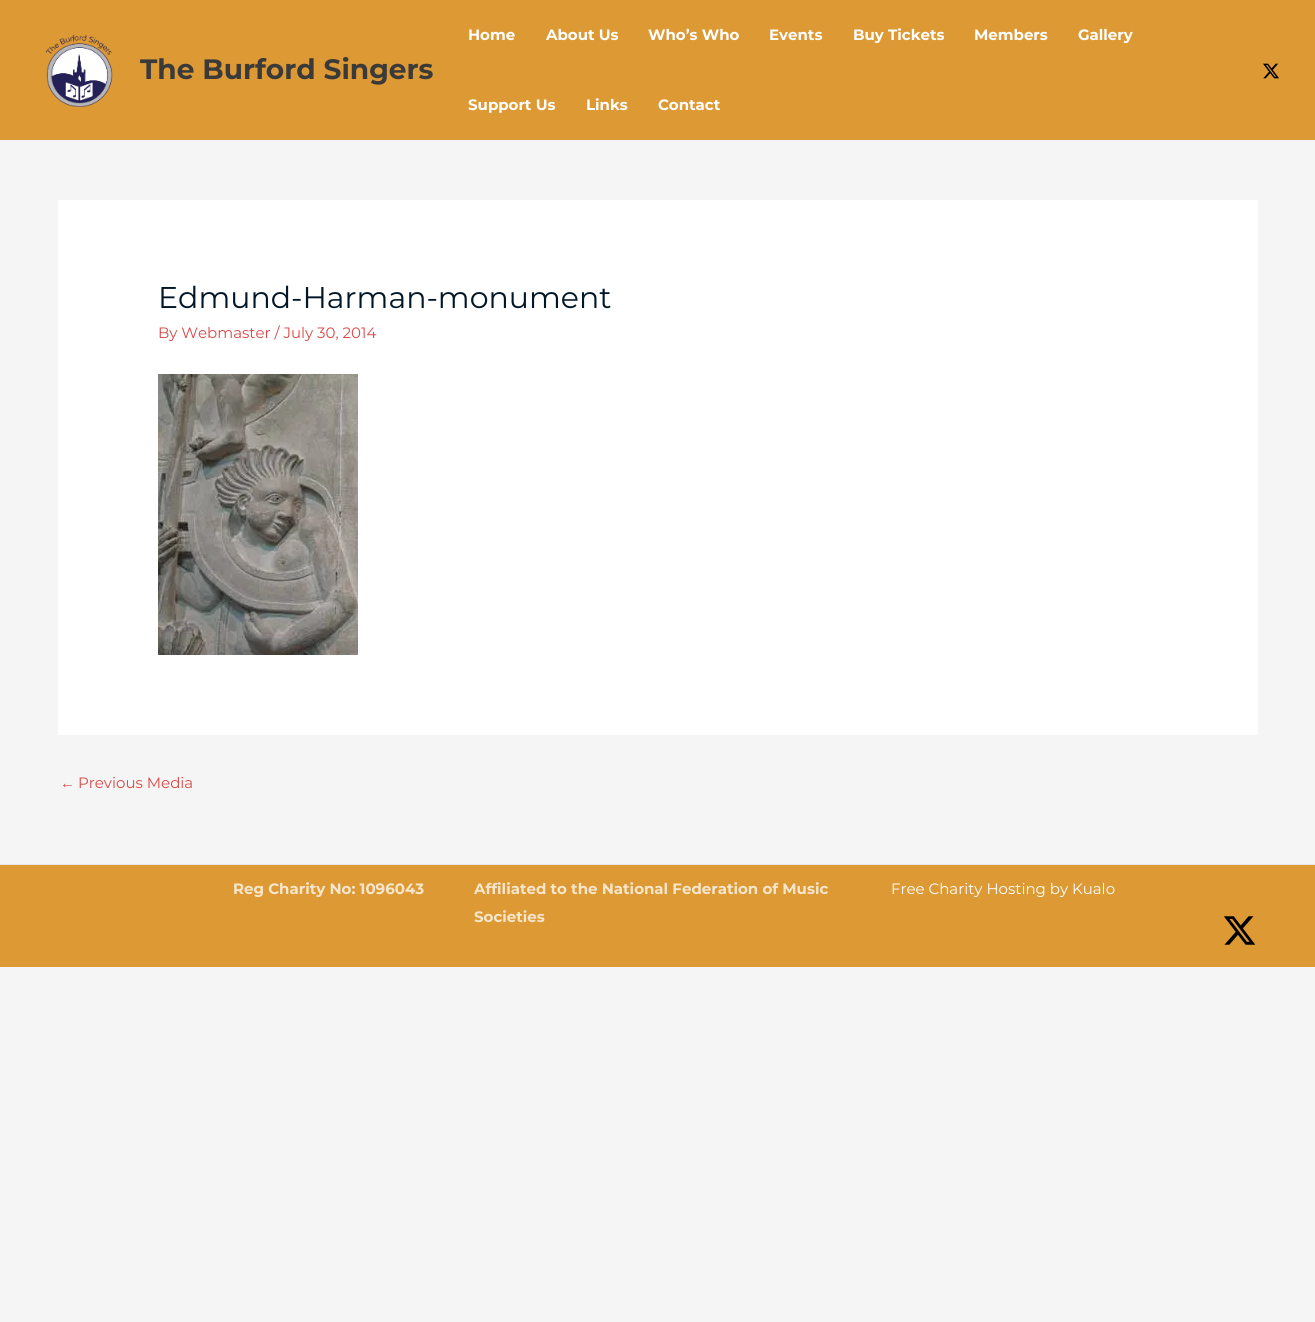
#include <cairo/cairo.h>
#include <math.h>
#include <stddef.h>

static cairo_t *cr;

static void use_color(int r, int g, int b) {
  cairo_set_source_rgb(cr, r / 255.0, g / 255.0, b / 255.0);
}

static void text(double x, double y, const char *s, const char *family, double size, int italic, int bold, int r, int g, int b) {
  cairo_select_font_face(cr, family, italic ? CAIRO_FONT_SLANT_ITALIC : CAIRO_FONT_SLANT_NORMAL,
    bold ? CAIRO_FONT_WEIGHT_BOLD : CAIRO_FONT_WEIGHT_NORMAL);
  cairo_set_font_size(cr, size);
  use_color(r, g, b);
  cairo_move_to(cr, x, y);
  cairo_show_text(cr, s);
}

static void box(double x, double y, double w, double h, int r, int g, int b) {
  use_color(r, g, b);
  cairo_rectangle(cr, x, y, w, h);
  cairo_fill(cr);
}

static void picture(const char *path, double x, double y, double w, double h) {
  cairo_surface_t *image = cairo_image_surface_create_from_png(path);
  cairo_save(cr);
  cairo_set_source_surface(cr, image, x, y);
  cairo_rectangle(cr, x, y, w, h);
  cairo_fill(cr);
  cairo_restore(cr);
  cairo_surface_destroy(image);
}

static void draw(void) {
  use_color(245, 245, 245);
  cairo_paint(cr);
  box(0, 0, 1315, 140, 221, 153, 51);
  picture("img_01.png", 45, 34, 68, 73);
  picture("img_02.png", 1263, 63, 16, 16);
  box(58, 200, 1200, 535, 255, 255, 255);
  picture("img_03.png", 158, 374, 200, 281);
  box(0, 865, 1315, 102, 221, 153, 51);
  box(0, 864, 1315, 1, 230, 230, 230);
  picture("img_04.png", 1224, 916, 32, 29);
  text(140, 79, "The Burford Singers", "Montserrat", 28, 0, 1, 58, 58, 58);
  text(468, 40, "Home", "Montserrat", 15, 0, 1, 255, 255, 255);
  text(546, 40, "About Us", "Montserrat", 15, 0, 1, 255, 255, 255);
  text(648, 40, "Who’s Who", "Montserrat", 15, 0, 1, 255, 255, 255);
  text(769, 40, "Events", "Montserrat", 15, 0, 1, 255, 255, 255);
  text(853, 40, "Buy Tickets", "Montserrat", 15, 0, 1, 255, 255, 255);
  text(974, 40, "Members", "Montserrat", 15, 0, 1, 255, 255, 255);
  text(1078, 40, "Gallery", "Montserrat", 15, 0, 1, 255, 255, 255);
  text(468, 110, "Support Us", "Montserrat", 15, 0, 1, 255, 255, 255);
  text(586, 110, "Links", "Montserrat", 15, 0, 1, 255, 255, 255);
  text(658, 110, "Contact", "Montserrat", 15, 0, 1, 255, 255, 255);
  text(158, 308, "Edmund-Harman-monument", "Montserrat", 30, 0, 0, 1, 22, 39);
  text(158, 338, "By Webmaster / July 30, 2014", "Montserrat", 15, 0, 0, 217, 73, 72);
  text(60, 788, "←", "Liberation Sans", 15, 0, 0, 217, 73, 72);
  text(78, 788, "Previous Media", "Montserrat", 15, 0, 0, 217, 73, 72);
  text(233, 894, "Reg Charity No: 1096043", "Montserrat", 15, 0, 1, 247, 230, 204);
  text(474, 894, "Affiliated to the National Federation of Music", "Montserrat", 15, 0, 1, 247, 230, 204);
  text(474, 922, "Societies", "Montserrat", 15, 0, 1, 247, 230, 204);
  text(891, 894, "Free Charity Hosting by Kualo", "Montserrat", 15, 0, 0, 255, 255, 255);
}

int main(void) {
  cairo_surface_t *surface = cairo_image_surface_create(CAIRO_FORMAT_RGB24, 1315, 1322);
  cr = cairo_create(surface);
  cairo_font_options_t *options = cairo_font_options_create();
  cairo_font_options_set_hint_metrics(options, CAIRO_HINT_METRICS_OFF);
  cairo_font_options_set_hint_style(options, CAIRO_HINT_STYLE_NONE);
  cairo_set_font_options(cr, options);
  cairo_set_miter_limit(cr, 4);
  draw();
  cairo_surface_write_to_png(surface, "out.png");
  cairo_font_options_destroy(options);
  cairo_destroy(cr);
  cairo_surface_destroy(surface);
  return 0;
}
